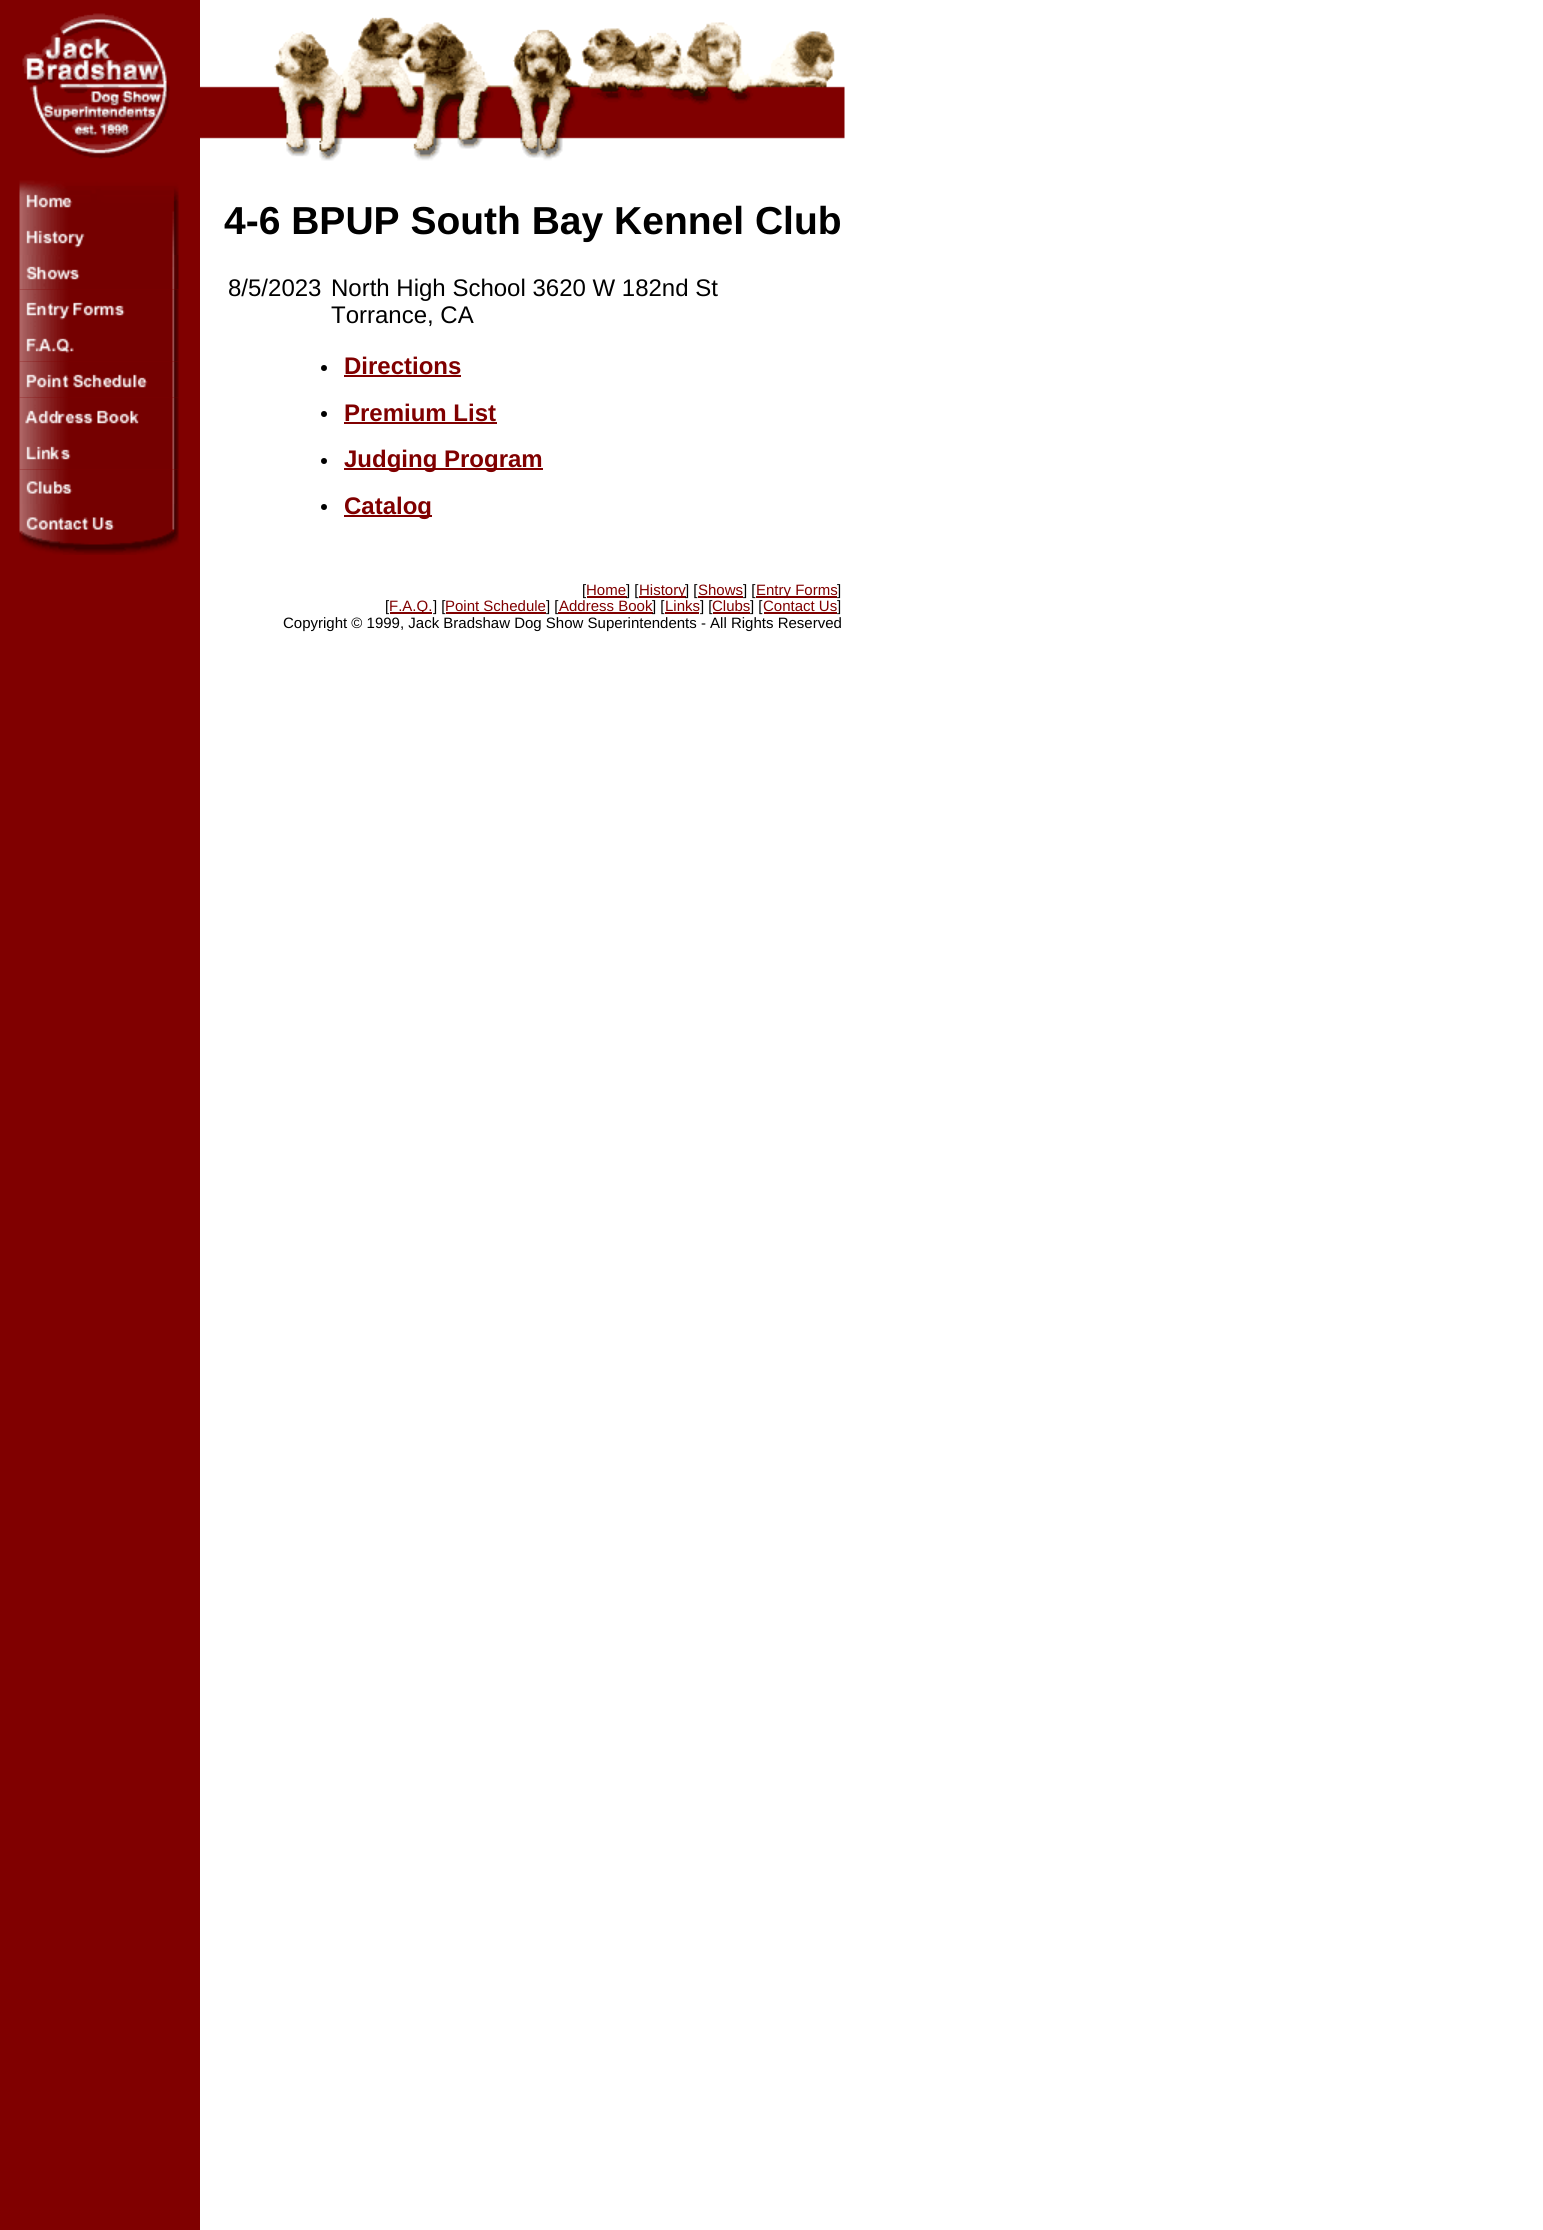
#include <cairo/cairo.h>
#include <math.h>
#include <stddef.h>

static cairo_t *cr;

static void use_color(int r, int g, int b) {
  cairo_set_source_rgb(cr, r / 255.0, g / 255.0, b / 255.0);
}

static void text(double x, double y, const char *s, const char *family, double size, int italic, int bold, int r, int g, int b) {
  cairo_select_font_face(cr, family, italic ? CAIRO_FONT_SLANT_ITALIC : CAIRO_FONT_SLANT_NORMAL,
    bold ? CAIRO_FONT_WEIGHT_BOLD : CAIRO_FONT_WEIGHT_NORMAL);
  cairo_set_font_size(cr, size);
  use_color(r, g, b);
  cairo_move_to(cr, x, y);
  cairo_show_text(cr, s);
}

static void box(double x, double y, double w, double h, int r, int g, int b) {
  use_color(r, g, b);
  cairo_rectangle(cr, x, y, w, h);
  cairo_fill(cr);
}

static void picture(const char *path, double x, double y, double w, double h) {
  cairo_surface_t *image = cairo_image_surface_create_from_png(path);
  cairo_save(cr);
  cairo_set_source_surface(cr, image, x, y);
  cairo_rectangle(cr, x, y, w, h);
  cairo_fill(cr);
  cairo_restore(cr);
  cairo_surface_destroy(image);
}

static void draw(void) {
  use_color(255, 255, 255);
  cairo_paint(cr);
  box(0, 0, 200, 2230, 128, 0, 0);
  picture("img_01.png", 22, 13, 148, 146);
  picture("img_02.png", 200, 17, 645, 144);
  picture("img_03.png", 19, 180, 160, 39);
  picture("img_04.png", 19, 219, 160, 36);
  picture("img_05.png", 19, 255, 160, 35);
  picture("img_06.png", 19, 289, 160, 38);
  picture("img_07.png", 19, 327, 160, 35);
  picture("img_08.png", 19, 361, 160, 37);
  picture("img_09.png", 19, 397, 160, 38);
  picture("img_10.png", 19, 435, 160, 35);
  picture("img_11.png", 19, 469, 160, 35);
  picture("img_12.png", 19, 504, 160, 51);
  use_color(0, 0, 0);
  cairo_arc(cr, 324, 368, 3, 0, 2 * M_PI);
  cairo_fill(cr);
  box(344, 375, 117, 2, 128, 0, 0);
  use_color(0, 0, 0);
  cairo_arc(cr, 324, 414, 3, 0, 2 * M_PI);
  cairo_fill(cr);
  box(344, 422, 153, 2, 128, 0, 0);
  use_color(0, 0, 0);
  cairo_arc(cr, 324, 461, 3, 0, 2 * M_PI);
  cairo_fill(cr);
  box(344, 468, 199, 2, 128, 0, 0);
  use_color(0, 0, 0);
  cairo_arc(cr, 324, 507, 3, 0, 2 * M_PI);
  cairo_fill(cr);
  box(344, 515, 88, 2, 128, 0, 0);
  box(587, 596, 40, 2, 128, 0, 0);
  box(639, 596, 47, 2, 128, 0, 0);
  box(698, 596, 45, 2, 128, 0, 0);
  box(756, 596, 81, 2, 128, 0, 0);
  box(390, 612, 42, 2, 128, 0, 0);
  box(446, 612, 100, 2, 128, 0, 0);
  box(665, 612, 34, 2, 128, 0, 0);
  box(713, 612, 37, 2, 128, 0, 0);
  box(764, 612, 73, 2, 128, 0, 0);
  text(224, 234, "4-6 BPUP South Bay Kennel Club", "Liberation Sans", 39, 0, 1, 0, 0, 0);
  text(228, 296, "8/5/2023", "Liberation Sans", 24, 0, 0, 0, 0, 0);
  text(331, 296, "North High School 3620 W 182nd St", "Liberation Sans", 24, 0, 0, 0, 0, 0);
  text(331, 323, "Torrance, CA", "Liberation Sans", 24, 0, 0, 0, 0, 0);
  text(344, 374, "Directions", "Liberation Sans", 24, 0, 1, 128, 0, 0);
  text(344, 421, "Premium List", "Liberation Sans", 24, 0, 1, 128, 0, 0);
  text(344, 467, "Judging Program", "Liberation Sans", 24, 0, 1, 128, 0, 0);
  text(344, 514, "Catalog", "Liberation Sans", 24, 0, 1, 128, 0, 0);
  text(582, 595, "[", "Liberation Sans", 15, 0, 0, 0, 0, 0);
  text(586, 595, "Home", "Liberation Sans", 15, 0, 0, 128, 0, 0);
  text(626, 595, "] [", "Liberation Sans", 15, 0, 0, 0, 0, 0);
  text(639, 595, "History", "Liberation Sans", 15, 0, 0, 128, 0, 0);
  text(685, 595, "] [", "Liberation Sans", 15, 0, 0, 0, 0, 0);
  text(698, 595, "Shows", "Liberation Sans", 15, 0, 0, 128, 0, 0);
  text(743, 595, "] [", "Liberation Sans", 15, 0, 0, 0, 0, 0);
  text(756, 595, "Entry Forms", "Liberation Sans", 15, 0, 0, 128, 0, 0);
  text(837, 595, "]", "Liberation Sans", 15, 0, 0, 0, 0, 0);
  text(385, 611, "[", "Liberation Sans", 15, 0, 0, 0, 0, 0);
  text(389, 611, "F.A.Q.", "Liberation Sans", 15, 0, 0, 128, 0, 0);
  text(433, 611, "] [", "Liberation Sans", 15, 0, 0, 0, 0, 0);
  text(445, 611, "Point Schedule", "Liberation Sans", 15, 0, 0, 128, 0, 0);
  text(546, 611, "] [", "Liberation Sans", 15, 0, 0, 0, 0, 0);
  box(558, 612, 95, 2, 128, 0, 0);
  text(559, 611, "Address Book", "Liberation Sans", 15, 0, 0, 128, 0, 0);
  text(652, 611, "] [", "Liberation Sans", 15, 0, 0, 0, 0, 0);
  text(665, 611, "Links", "Liberation Sans", 15, 0, 0, 128, 0, 0);
  text(700, 611, "] [", "Liberation Sans", 15, 0, 0, 0, 0, 0);
  text(712, 611, "Clubs", "Liberation Sans", 15, 0, 0, 128, 0, 0);
  text(750, 611, "] [", "Liberation Sans", 15, 0, 0, 0, 0, 0);
  text(763, 611, "Contact Us", "Liberation Sans", 15, 0, 0, 128, 0, 0);
  text(837, 611, "]", "Liberation Sans", 15, 0, 0, 0, 0, 0);
  text(283, 628, "Copyright © 1999, Jack Bradshaw Dog Show Superintendents - All Rights Reserved", "Liberation Sans", 15, 0, 0, 0, 0, 0);
}

int main(void) {
  cairo_surface_t *surface = cairo_image_surface_create(CAIRO_FORMAT_RGB24, 1543, 2230);
  cr = cairo_create(surface);
  cairo_font_options_t *options = cairo_font_options_create();
  cairo_font_options_set_hint_metrics(options, CAIRO_HINT_METRICS_OFF);
  cairo_font_options_set_hint_style(options, CAIRO_HINT_STYLE_NONE);
  cairo_set_font_options(cr, options);
  cairo_set_miter_limit(cr, 4);
  draw();
  cairo_surface_write_to_png(surface, "out.png");
  cairo_font_options_destroy(options);
  cairo_destroy(cr);
  cairo_surface_destroy(surface);
  return 0;
}
